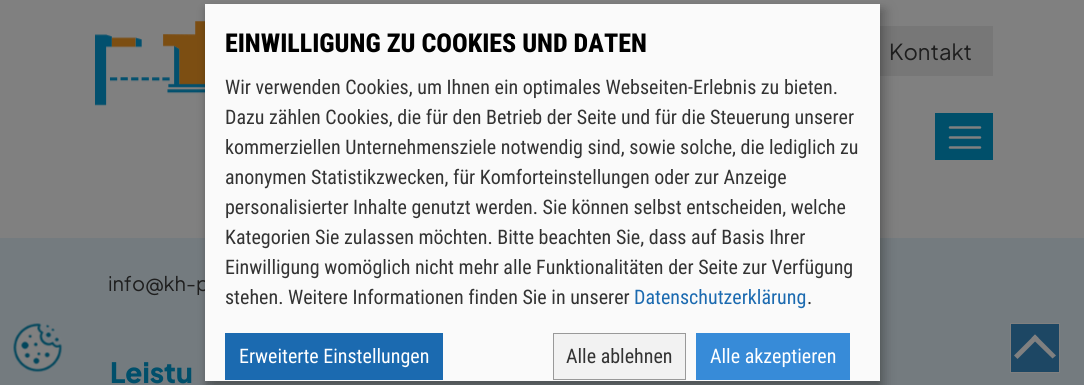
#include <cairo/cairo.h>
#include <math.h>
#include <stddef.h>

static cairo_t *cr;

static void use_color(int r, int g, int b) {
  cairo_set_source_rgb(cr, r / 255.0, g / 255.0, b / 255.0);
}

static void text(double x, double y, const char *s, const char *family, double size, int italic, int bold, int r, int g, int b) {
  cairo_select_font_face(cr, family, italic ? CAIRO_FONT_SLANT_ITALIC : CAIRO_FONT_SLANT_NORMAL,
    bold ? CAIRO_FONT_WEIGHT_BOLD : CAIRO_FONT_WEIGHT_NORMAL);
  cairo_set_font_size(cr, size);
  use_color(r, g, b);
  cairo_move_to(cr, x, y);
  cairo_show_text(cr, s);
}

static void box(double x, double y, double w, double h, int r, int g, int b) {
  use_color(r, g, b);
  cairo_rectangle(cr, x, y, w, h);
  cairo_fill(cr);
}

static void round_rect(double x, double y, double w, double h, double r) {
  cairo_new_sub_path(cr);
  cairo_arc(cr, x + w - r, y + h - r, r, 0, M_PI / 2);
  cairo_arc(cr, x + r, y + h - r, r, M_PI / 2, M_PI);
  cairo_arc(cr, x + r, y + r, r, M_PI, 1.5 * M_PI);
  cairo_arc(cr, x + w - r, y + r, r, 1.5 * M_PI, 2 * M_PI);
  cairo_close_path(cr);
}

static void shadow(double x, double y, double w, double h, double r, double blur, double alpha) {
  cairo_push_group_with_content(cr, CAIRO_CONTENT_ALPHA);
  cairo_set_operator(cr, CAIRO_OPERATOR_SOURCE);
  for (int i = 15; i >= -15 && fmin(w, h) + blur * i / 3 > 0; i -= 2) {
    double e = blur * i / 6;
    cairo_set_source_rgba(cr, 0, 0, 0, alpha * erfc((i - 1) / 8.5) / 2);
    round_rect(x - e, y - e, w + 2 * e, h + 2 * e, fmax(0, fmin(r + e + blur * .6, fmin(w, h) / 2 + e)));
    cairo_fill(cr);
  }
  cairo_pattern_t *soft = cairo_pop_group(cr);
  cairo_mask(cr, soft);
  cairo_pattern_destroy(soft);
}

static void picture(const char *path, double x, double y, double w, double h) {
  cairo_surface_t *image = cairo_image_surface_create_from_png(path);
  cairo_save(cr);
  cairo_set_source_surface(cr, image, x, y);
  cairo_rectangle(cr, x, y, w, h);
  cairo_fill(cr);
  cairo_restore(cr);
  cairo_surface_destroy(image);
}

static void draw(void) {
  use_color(116, 123, 127);
  cairo_paint(cr);
  box(0, 0, 1084, 238, 128, 128, 128);
  picture("img_01.png", 95, 21, 110, 85);
  box(880, 26, 113, 50, 119, 119, 119);
  use_color(0, 0, 0);
  shadow(211, 10, 675, 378, 0, 6, 0.19);
  shadow(205, 9, 675, 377, 0, 4, 0.2);
  box(935, 113, 58, 47, 0, 79, 106);
  cairo_new_path(cr);
  cairo_move_to(cr, 950, 127.5);
  cairo_line_to(cr, 980, 127.5);
  cairo_move_to(cr, 950, 137.5);
  cairo_line_to(cr, 980, 137.5);
  cairo_move_to(cr, 950, 147.5);
  cairo_line_to(cr, 980, 147.5);
  use_color(128, 128, 128);
  cairo_set_line_width(cr, 2.5);
  cairo_set_line_cap(cr, CAIRO_LINE_CAP_ROUND);
  cairo_stroke(cr);
  picture("img_02.png", 13, 323, 50, 50);
  box(1011, 324, 48, 48, 29, 71, 100);
  use_color(128, 128, 128);
  cairo_set_fill_rule(cr, CAIRO_FILL_RULE_EVEN_ODD);
  cairo_new_path(cr);
  cairo_move_to(cr, 1035, 334.5);
  cairo_line_to(cr, 1014, 355.5);
  cairo_line_to(cr, 1017.5, 359);
  cairo_line_to(cr, 1038.5, 338);
  cairo_close_path(cr);
  cairo_fill(cr);
  cairo_new_path(cr);
  cairo_move_to(cr, 1056, 355.5);
  cairo_line_to(cr, 1035, 334.5);
  cairo_line_to(cr, 1031.5, 338);
  cairo_line_to(cr, 1052.5, 358.5);
  cairo_close_path(cr);
  cairo_fill(cr);
  cairo_rectangle(cr, 1010.5, 323.5, 49, 49);
  cairo_set_line_width(cr, 1);
  cairo_set_line_cap(cr, CAIRO_LINE_CAP_BUTT);
  cairo_stroke(cr);
  text(889, 60, "Kontakt", "Plus Jakarta Sans", 22, 0, 0, 30, 30, 30);
  text(108, 291, "info@kh-p", "Plus Jakarta Sans", 20, 0, 0, 30, 30, 30);
  box(205, 4, 675, 377, 250, 250, 250);
  box(696, 333, 154, 47, 55, 139, 216);
  text(710, 363, "Alle akzeptieren", "Roboto Condensed", 20, 0, 0, 255, 255, 255);
  use_color(242, 242, 242);
  cairo_rectangle(cr, 553.5, 333.5, 132, 46);
  cairo_fill_preserve(cr);
  use_color(153, 153, 153);
  cairo_stroke(cr);
  text(566, 363, "Alle ablehnen", "Roboto Condensed", 20, 0, 0, 51, 51, 51);
  box(225, 333, 218, 47, 27, 106, 176);
  text(239, 363, "Erweiterte Einstellungen", "Roboto Condensed", 20, 0, 0, 255, 255, 255);
  text(807, 304, ".", "Roboto Condensed", 20, 0, 0, 51, 51, 51);
  text(634, 304, "Datenschutzerklärung", "Roboto Condensed", 20, 0, 0, 27, 106, 176);
  text(225, 304, "stehen. Weitere Informationen finden Sie in unserer", "Roboto Condensed", 20, 0, 0, 51, 51, 51);
  text(225, 274, "Einwilligung womöglich nicht mehr alle Funktionalitäten der Seite zur Verfügung", "Roboto Condensed", 20, 0, 0, 51, 51, 51);
  text(225, 244, "Kategorien Sie zulassen möchten. Bitte beachten Sie, dass auf Basis Ihrer", "Roboto Condensed", 20, 0, 0, 51, 51, 51);
  text(225, 214, "personalisierter Inhalte genutzt werden. Sie können selbst entscheiden, welche", "Roboto Condensed", 20, 0, 0, 51, 51, 51);
  text(225, 184, "anonymen Statistikzwecken, für Komforteinstellungen oder zur Anzeige", "Roboto Condensed", 20, 0, 0, 51, 51, 51);
  text(225, 154, "kommerziellen Unternehmensziele notwendig sind, sowie solche, die lediglich zu", "Roboto Condensed", 20, 0, 0, 51, 51, 51);
  text(225, 124, "Dazu zählen Cookies, die für den Betrieb der Seite und für die Steuerung unserer", "Roboto Condensed", 20, 0, 0, 51, 51, 51);
  text(225, 94, "Wir verwenden Cookies, um Ihnen ein optimales Webseiten-Erlebnis zu bieten.", "Roboto Condensed", 20, 0, 0, 51, 51, 51);
  text(225, 52, "EINWILLIGUNG ZU COOKIES UND DATEN", "Roboto Condensed ExtraBold", 26, 0, 0, 0, 0, 0);
  text(110, 383, "Leistu", "Plus Jakarta Sans ExtraBold", 28, 0, 0, 0, 79, 107);
}

int main(void) {
  cairo_surface_t *surface = cairo_image_surface_create(CAIRO_FORMAT_RGB24, 1084, 385);
  cr = cairo_create(surface);
  cairo_font_options_t *options = cairo_font_options_create();
  cairo_font_options_set_hint_metrics(options, CAIRO_HINT_METRICS_OFF);
  cairo_font_options_set_hint_style(options, CAIRO_HINT_STYLE_NONE);
  cairo_set_font_options(cr, options);
  cairo_set_miter_limit(cr, 4);
  draw();
  cairo_surface_write_to_png(surface, "out.png");
  cairo_font_options_destroy(options);
  cairo_destroy(cr);
  cairo_surface_destroy(surface);
  return 0;
}
